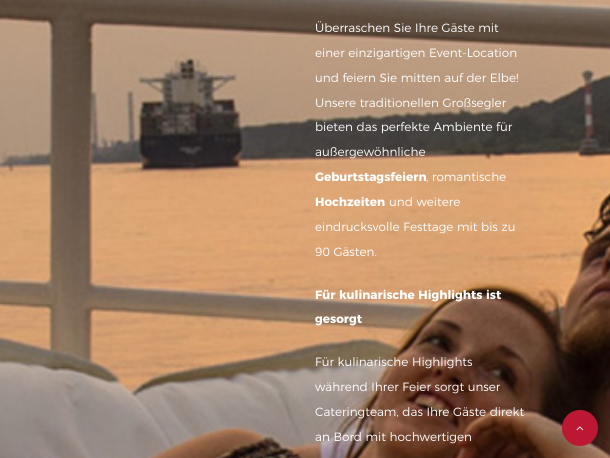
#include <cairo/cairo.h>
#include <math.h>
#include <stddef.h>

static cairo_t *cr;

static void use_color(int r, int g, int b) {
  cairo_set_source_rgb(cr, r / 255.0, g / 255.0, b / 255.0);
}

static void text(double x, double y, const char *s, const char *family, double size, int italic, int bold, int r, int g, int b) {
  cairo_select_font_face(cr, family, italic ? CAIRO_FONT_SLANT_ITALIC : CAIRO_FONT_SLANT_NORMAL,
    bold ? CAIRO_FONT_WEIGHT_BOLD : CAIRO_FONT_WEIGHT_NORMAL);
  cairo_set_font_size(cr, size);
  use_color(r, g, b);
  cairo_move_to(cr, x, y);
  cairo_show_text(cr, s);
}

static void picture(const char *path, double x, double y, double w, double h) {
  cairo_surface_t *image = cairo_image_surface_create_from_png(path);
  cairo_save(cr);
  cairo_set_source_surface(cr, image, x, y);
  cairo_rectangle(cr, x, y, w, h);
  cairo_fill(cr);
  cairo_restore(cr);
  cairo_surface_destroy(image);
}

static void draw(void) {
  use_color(255, 255, 255);
  cairo_paint(cr);
  picture("img_01.png", 0, 0, 610, 458);
  use_color(188, 24, 52);
  cairo_arc(cr, 580, 428, 18, 0, 2 * M_PI);
  cairo_fill(cr);
  picture("img_02.png", 576, 426, 8, 5);
  text(315, 32, "Überraschen Sie Ihre Gäste mit", "Montserrat Light", 12, 0, 0, 255, 255, 255);
  text(315, 57, "einer einzigartigen Event-Location", "Montserrat Light", 12, 0, 0, 255, 255, 255);
  text(315, 82, "und feiern Sie mitten auf der Elbe!", "Montserrat Light", 12, 0, 0, 255, 255, 255);
  text(315, 107, "Unsere traditionellen Großsegler", "Montserrat Light", 12, 0, 0, 255, 255, 255);
  text(315, 131, "bieten das perfekte Ambiente für", "Montserrat Light", 12, 0, 0, 255, 255, 255);
  text(315, 156, "außergewöhnliche", "Montserrat Light", 12, 0, 0, 255, 255, 255);
  text(315, 181, "Geburtstagsfeiern", "Montserrat", 12, 0, 1, 255, 255, 255);
  text(426, 181, ", romantische", "Montserrat Light", 12, 0, 0, 255, 255, 255);
  text(315, 206, "Hochzeiten", "Montserrat", 12, 0, 1, 255, 255, 255);
  text(389, 206, "und weitere", "Montserrat Light", 12, 0, 0, 255, 255, 255);
  text(315, 231, "eindrucksvolle Festtage mit bis zu", "Montserrat Light", 12, 0, 0, 255, 255, 255);
  text(315, 256, "90 Gästen.", "Montserrat Light", 12, 0, 0, 255, 255, 255);
  text(315, 299, "Für kulinarische Highlights ist", "Montserrat", 12, 0, 1, 255, 255, 255);
  text(315, 323, "gesorgt", "Montserrat", 12, 0, 1, 255, 255, 255);
  text(315, 366, "Für kulinarische Highlights", "Montserrat Light", 12, 0, 0, 255, 255, 255);
  text(315, 391, "während Ihrer Feier sorgt unser", "Montserrat Light", 12, 0, 0, 255, 255, 255);
  text(315, 416, "Cateringteam, das Ihre Gäste direkt", "Montserrat Light", 12, 0, 0, 255, 255, 255);
  text(315, 441, "an Bord mit hochwertigen", "Montserrat Light", 12, 0, 0, 255, 255, 255);
}

int main(void) {
  cairo_surface_t *surface = cairo_image_surface_create(CAIRO_FORMAT_RGB24, 610, 458);
  cr = cairo_create(surface);
  cairo_font_options_t *options = cairo_font_options_create();
  cairo_font_options_set_hint_metrics(options, CAIRO_HINT_METRICS_OFF);
  cairo_font_options_set_hint_style(options, CAIRO_HINT_STYLE_NONE);
  cairo_set_font_options(cr, options);
  cairo_set_miter_limit(cr, 4);
  draw();
  cairo_surface_write_to_png(surface, "out.png");
  cairo_font_options_destroy(options);
  cairo_destroy(cr);
  cairo_surface_destroy(surface);
  return 0;
}
